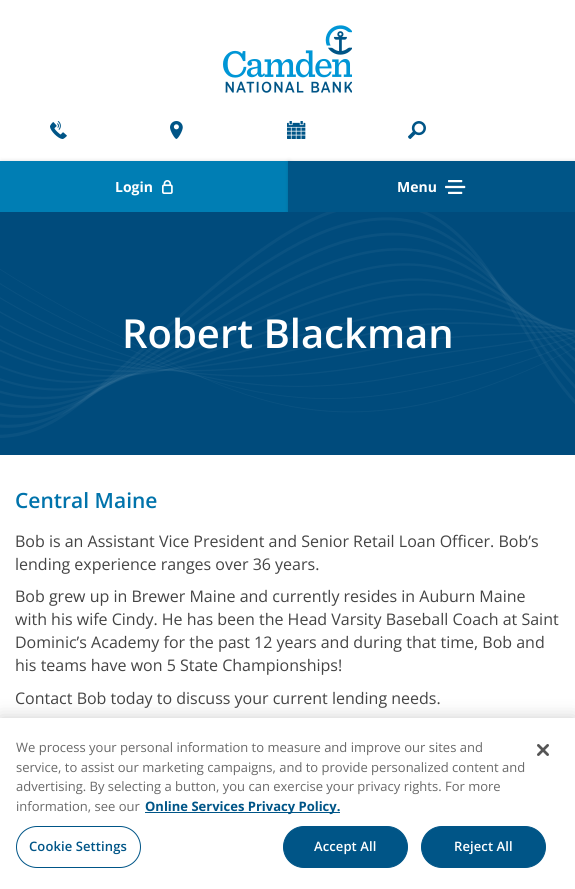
#include <cairo/cairo.h>
#include <math.h>
#include <stddef.h>

static cairo_t *cr;

static void use_color(int r, int g, int b) {
  cairo_set_source_rgb(cr, r / 255.0, g / 255.0, b / 255.0);
}

static void text(double x, double y, const char *s, const char *family, double size, int italic, int bold, int r, int g, int b) {
  cairo_select_font_face(cr, family, italic ? CAIRO_FONT_SLANT_ITALIC : CAIRO_FONT_SLANT_NORMAL,
    bold ? CAIRO_FONT_WEIGHT_BOLD : CAIRO_FONT_WEIGHT_NORMAL);
  cairo_set_font_size(cr, size);
  use_color(r, g, b);
  cairo_move_to(cr, x, y);
  cairo_show_text(cr, s);
}

static void spaced_text(double x, double y, const char *s, double letter, double word) {
  cairo_move_to(cr, x, y);
  while (*s) {
    char ch[5] = {0};
    int n = 0;
    do ch[n++] = *s++; while ((*s & 0xC0) == 0x80);
    cairo_show_text(cr, ch);
    cairo_rel_move_to(cr, letter + word * (*ch == ' '), 0);
  }
}

static void box(double x, double y, double w, double h, int r, int g, int b) {
  use_color(r, g, b);
  cairo_rectangle(cr, x, y, w, h);
  cairo_fill(cr);
}

static void round_rect(double x, double y, double w, double h, double r) {
  cairo_new_sub_path(cr);
  cairo_arc(cr, x + w - r, y + h - r, r, 0, M_PI / 2);
  cairo_arc(cr, x + r, y + h - r, r, M_PI / 2, M_PI);
  cairo_arc(cr, x + r, y + r, r, M_PI, 1.5 * M_PI);
  cairo_arc(cr, x + w - r, y + r, r, 1.5 * M_PI, 2 * M_PI);
  cairo_close_path(cr);
}

static void shadow(double x, double y, double w, double h, double r, double blur, double alpha) {
  cairo_push_group_with_content(cr, CAIRO_CONTENT_ALPHA);
  cairo_set_operator(cr, CAIRO_OPERATOR_SOURCE);
  for (int i = 15; i >= -15 && fmin(w, h) + blur * i / 3 > 0; i -= 2) {
    double e = blur * i / 6;
    cairo_set_source_rgba(cr, 0, 0, 0, alpha * erfc((i - 1) / 8.5) / 2);
    round_rect(x - e, y - e, w + 2 * e, h + 2 * e, fmax(0, fmin(r + e + blur * .6, fmin(w, h) / 2 + e)));
    cairo_fill(cr);
  }
  cairo_pattern_t *soft = cairo_pop_group(cr);
  cairo_mask(cr, soft);
  cairo_pattern_destroy(soft);
}

static void picture(const char *path, double x, double y, double w, double h) {
  cairo_surface_t *image = cairo_image_surface_create_from_png(path);
  cairo_save(cr);
  cairo_set_source_surface(cr, image, x, y);
  cairo_rectangle(cr, x, y, w, h);
  cairo_fill(cr);
  cairo_restore(cr);
  cairo_surface_destroy(image);
}

static void draw(void) {
  use_color(255, 255, 255);
  cairo_paint(cr);
  picture("img_01.png", 223, 25, 129, 68);
  picture("img_02.png", 50, 121, 17, 18);
  picture("img_03.png", 170, 121, 13, 18);
  picture("img_04.png", 287, 121, 19, 18);
  picture("img_05.png", 408, 121, 18, 18);
  use_color(0, 0, 0);
  shadow(1, 162, 288, 51, 0, 2.5, 0.2);
  box(0, 161, 288, 51, 0, 126, 180);
  picture("img_06.png", 162, 180, 11, 14);
  use_color(0, 0, 0);
  shadow(289, 162, 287, 51, 0, 2.5, 0.2);
  box(288, 161, 287, 51, 0, 85, 135);
  picture("img_07.png", 445, 180, 21, 14);
  box(0, 212, 575, 243, 0, 75, 124);
  picture("img_08.png", 0, 212, 575, 226);
  use_color(0, 0, 0);
  shadow(0, 718, 575, 171, 0, 9, 0.2);
  box(0, 718, 575, 171, 255, 255, 255);
  box(145, 812, 195, 1, 0, 85, 135);
  round_rect(16.5, 826.5, 124, 41, 20.5);
  cairo_set_line_width(cr, 1);
  cairo_stroke(cr);
  round_rect(283.5, 826.5, 124, 41, 20.5);
  cairo_fill_preserve(cr);
  cairo_stroke(cr);
  round_rect(421.5, 826.5, 124, 41, 20.5);
  cairo_fill_preserve(cr);
  cairo_stroke(cr);
  picture("img_09.png", 537, 744, 12, 12);
  text(115, 192, "Login", "Open Sans", 14, 0, 1, 255, 255, 255);
  text(397, 192, "Menu", "Open Sans", 14, 0, 1, 255, 255, 255);
  text(122, 348, "Robert Blackman", "Open Sans SemiBold", 40, 0, 0, 255, 255, 255);
  text(15, 508, "Central Maine", "Open Sans SemiBold", 21, 0, 0, 0, 115, 171);
  text(15, 547, "Bob is an Assistant Vice President and Senior Retail Loan Officer. Bob’s", "Open Sans", 16, 0, 0, 68, 68, 68);
  text(15, 570, "lending experience ranges over 36 years.", "Open Sans", 16, 0, 0, 68, 68, 68);
  text(15, 602, "Bob grew up in Brewer Maine and currently resides in Auburn Maine", "Open Sans", 16, 0, 0, 68, 68, 68);
  text(15, 625, "with his wife Cindy. He has been the Head Varsity Baseball Coach at Saint", "Open Sans", 16, 0, 0, 68, 68, 68);
  text(15, 648, "Dominic’s Academy for the past 12 years and during that time, Bob and", "Open Sans", 16, 0, 0, 68, 68, 68);
  text(15, 671, "his teams have won 5 State Championships!", "Open Sans", 16, 0, 0, 68, 68, 68);
  text(15, 704, "Contact Bob today to discuss your current lending needs.", "Open Sans", 16, 0, 0, 68, 68, 68);
  text(16, 752, "We process your personal information to measure and improve our sites and", "Open Sans", 13, 0, 0, 105, 105, 105);
  text(16, 772, "service, to assist our marketing campaigns, and to provide personalized content and", "Open Sans", 13, 0, 0, 105, 105, 105);
  text(16, 791, "advertising. By selecting a button, you can exercise your privacy rights. For more", "Open Sans", 13, 0, 0, 105, 105, 105);
  text(16, 811, "information, see our", "Open Sans", 13, 0, 0, 105, 105, 105);
  text(145, 811, "Online Services Privacy Policy.", "Open Sans", 13, 0, 1, 0, 85, 135);
  cairo_select_font_face(cr, "Open Sans SemiBold", CAIRO_FONT_SLANT_NORMAL, CAIRO_FONT_WEIGHT_NORMAL);
  spaced_text(29, 851, "Cookie Settings", 0.1, 0);
  use_color(255, 255, 255);
  spaced_text(314, 851, "Accept All", 0.1, 0);
  spaced_text(454, 851, "Reject All", 0.1, 0);
}

int main(void) {
  cairo_surface_t *surface = cairo_image_surface_create(CAIRO_FORMAT_RGB24, 575, 889);
  cr = cairo_create(surface);
  cairo_font_options_t *options = cairo_font_options_create();
  cairo_font_options_set_hint_metrics(options, CAIRO_HINT_METRICS_OFF);
  cairo_font_options_set_hint_style(options, CAIRO_HINT_STYLE_NONE);
  cairo_set_font_options(cr, options);
  cairo_set_miter_limit(cr, 4);
  draw();
  cairo_surface_write_to_png(surface, "out.png");
  cairo_font_options_destroy(options);
  cairo_destroy(cr);
  cairo_surface_destroy(surface);
  return 0;
}
